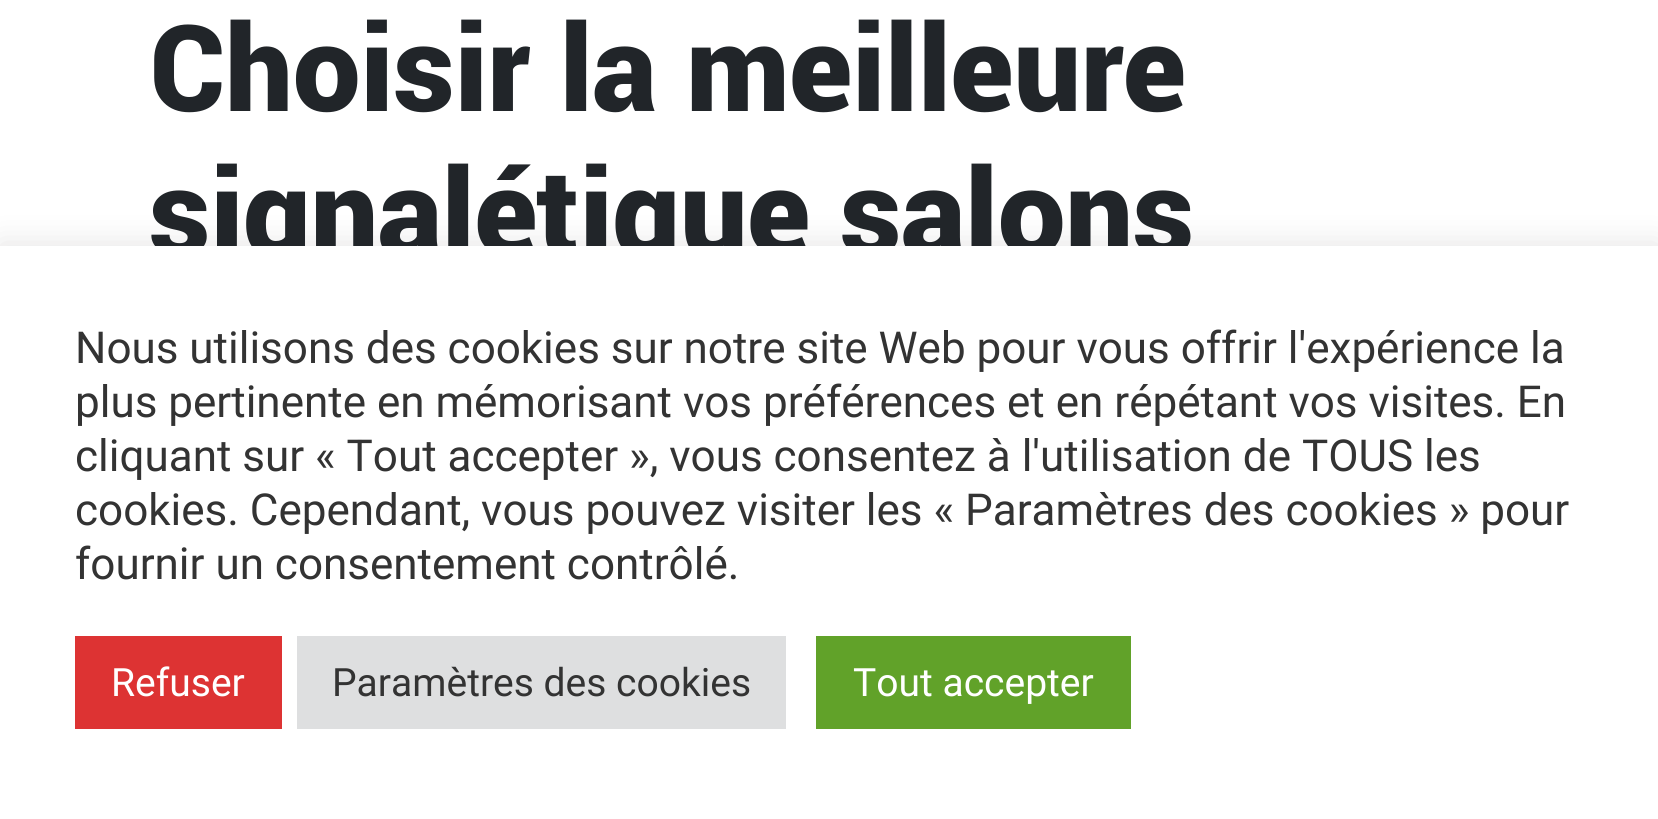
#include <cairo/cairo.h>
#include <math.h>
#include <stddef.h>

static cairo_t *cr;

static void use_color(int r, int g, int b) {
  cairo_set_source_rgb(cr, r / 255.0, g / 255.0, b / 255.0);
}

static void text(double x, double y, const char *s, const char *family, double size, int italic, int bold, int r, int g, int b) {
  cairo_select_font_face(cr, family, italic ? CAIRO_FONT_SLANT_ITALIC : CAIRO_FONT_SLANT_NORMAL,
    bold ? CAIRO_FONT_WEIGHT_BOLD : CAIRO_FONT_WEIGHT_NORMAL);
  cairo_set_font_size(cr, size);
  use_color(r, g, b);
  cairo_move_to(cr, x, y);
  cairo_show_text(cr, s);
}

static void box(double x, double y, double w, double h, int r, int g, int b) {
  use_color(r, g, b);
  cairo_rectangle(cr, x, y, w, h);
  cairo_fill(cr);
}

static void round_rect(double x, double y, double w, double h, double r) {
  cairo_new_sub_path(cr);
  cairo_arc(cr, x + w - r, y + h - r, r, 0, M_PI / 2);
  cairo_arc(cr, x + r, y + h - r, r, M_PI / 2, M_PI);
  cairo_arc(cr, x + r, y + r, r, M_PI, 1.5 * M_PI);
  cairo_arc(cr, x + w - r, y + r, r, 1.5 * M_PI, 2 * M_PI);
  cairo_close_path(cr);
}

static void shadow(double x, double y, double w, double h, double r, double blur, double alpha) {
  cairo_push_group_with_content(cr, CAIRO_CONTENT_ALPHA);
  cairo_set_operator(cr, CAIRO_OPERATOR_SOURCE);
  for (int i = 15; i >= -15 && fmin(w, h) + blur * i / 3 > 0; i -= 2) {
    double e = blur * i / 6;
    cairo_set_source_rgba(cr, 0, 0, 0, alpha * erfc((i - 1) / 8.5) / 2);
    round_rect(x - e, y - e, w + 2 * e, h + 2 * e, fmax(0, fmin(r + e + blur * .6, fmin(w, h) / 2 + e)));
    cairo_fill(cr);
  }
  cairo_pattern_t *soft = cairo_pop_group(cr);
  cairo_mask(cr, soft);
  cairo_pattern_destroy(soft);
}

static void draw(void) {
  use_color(255, 255, 255);
  cairo_paint(cr);
  use_color(172, 171, 171);
  shadow(0, 243, 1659, 573, 0, 15, 0.3);
  text(149, 111, "Choisir la meilleure", "Roboto Black", 120, 0, 0, 33, 37, 41);
  text(149, 255, "signalétique salons", "Roboto Black", 120, 0, 0, 33, 37, 41);
  box(0, 246, 1658, 573, 255, 255, 255);
  text(75, 363, "Nous utilisons des cookies sur notre site Web pour vous offrir l'expérience la", "Roboto", 44, 0, 0, 51, 51, 51);
  text(75, 417, "plus pertinente en mémorisant vos préférences et en répétant vos visites. En", "Roboto", 44, 0, 0, 51, 51, 51);
  text(75, 471, "cliquant sur « Tout accepter », vous consentez à l'utilisation de TOUS les", "Roboto", 44, 0, 0, 51, 51, 51);
  text(75, 525, "cookies. Cependant, vous pouvez visiter les « Paramètres des cookies » pour", "Roboto", 44, 0, 0, 51, 51, 51);
  text(75, 579, "fournir un consentement contrôlé.", "Roboto", 44, 0, 0, 51, 51, 51);
  box(75, 636, 207, 93, 221, 51, 51);
  text(111, 696, "Refuser", "Roboto", 39, 0, 0, 255, 255, 255);
  box(297, 636, 489, 93, 222, 223, 224);
  text(332, 696, "Paramètres des cookies", "Roboto", 39, 0, 0, 51, 51, 51);
  box(816, 636, 315, 93, 97, 162, 41);
  text(853, 696, "Tout accepter", "Roboto", 39, 0, 0, 255, 255, 255);
}

int main(void) {
  cairo_surface_t *surface = cairo_image_surface_create(CAIRO_FORMAT_RGB24, 1658, 819);
  cr = cairo_create(surface);
  cairo_font_options_t *options = cairo_font_options_create();
  cairo_font_options_set_hint_metrics(options, CAIRO_HINT_METRICS_OFF);
  cairo_font_options_set_hint_style(options, CAIRO_HINT_STYLE_NONE);
  cairo_set_font_options(cr, options);
  cairo_set_miter_limit(cr, 4);
  draw();
  cairo_surface_write_to_png(surface, "out.png");
  cairo_font_options_destroy(options);
  cairo_destroy(cr);
  cairo_surface_destroy(surface);
  return 0;
}
